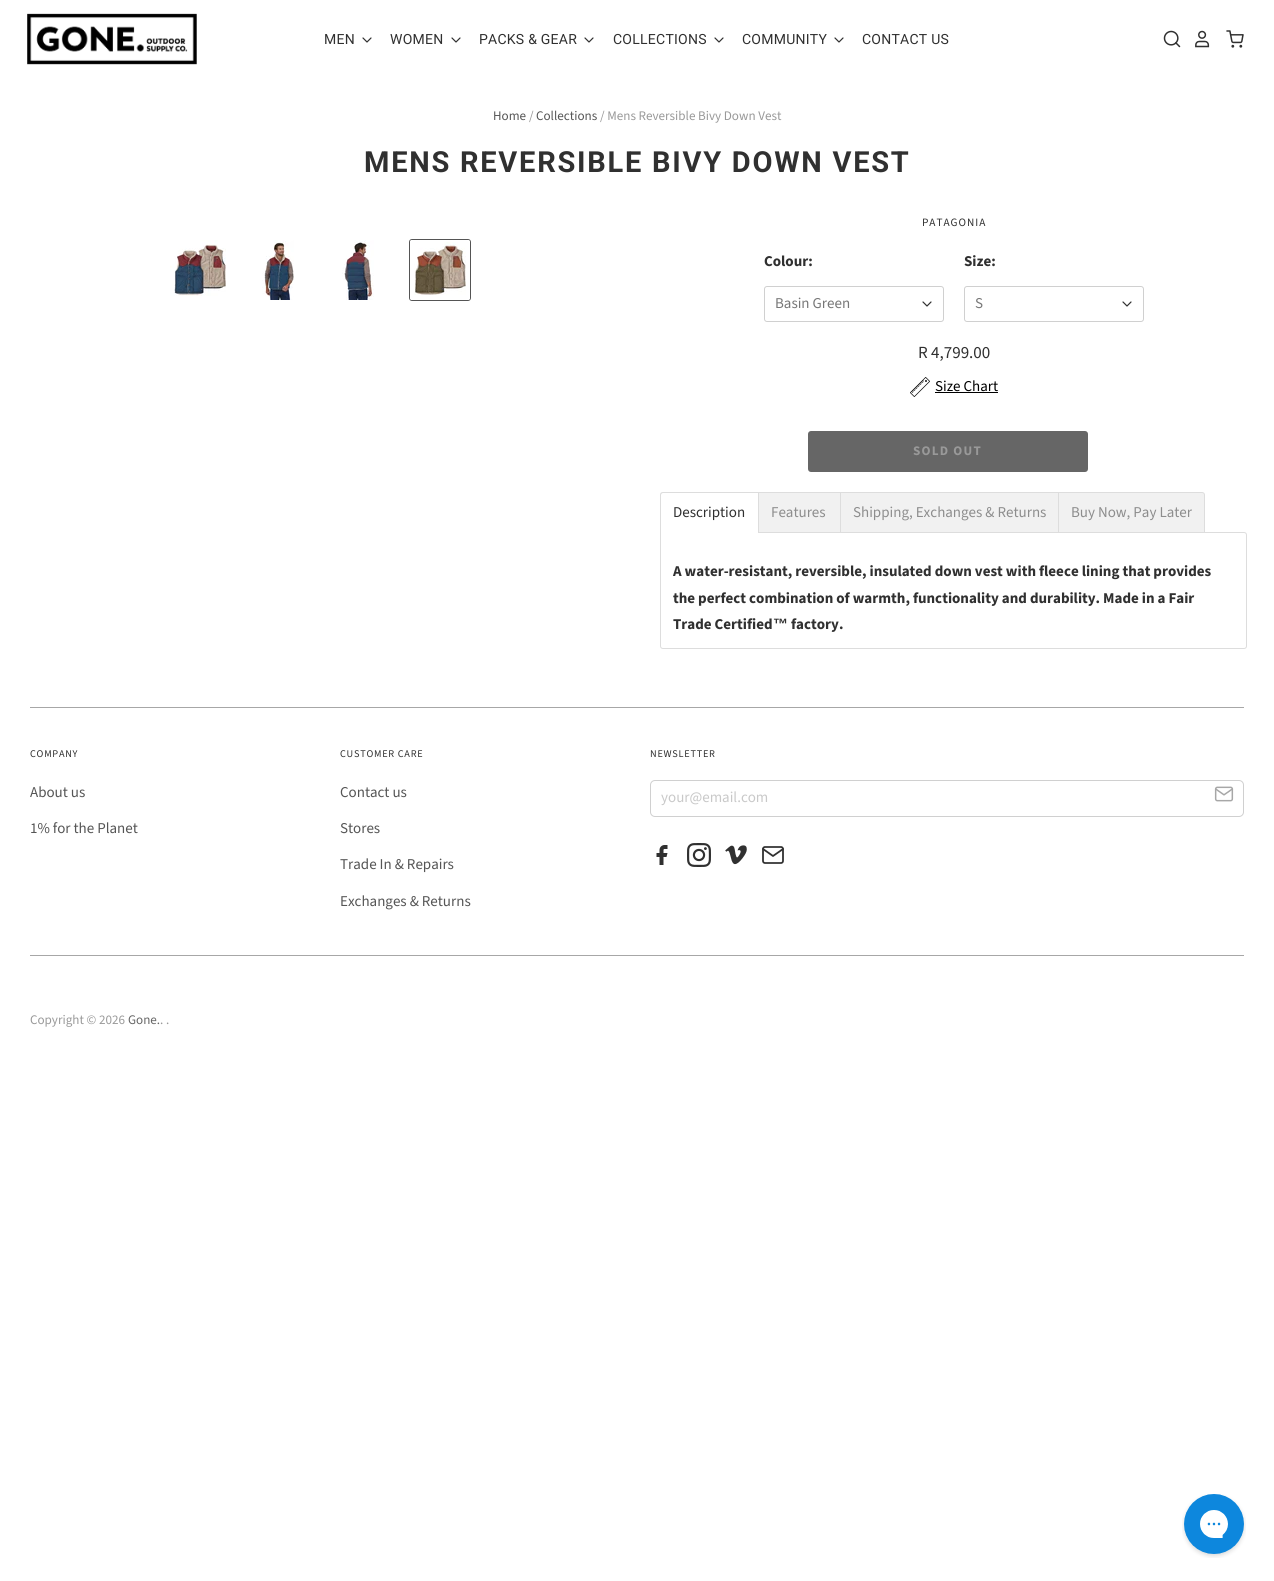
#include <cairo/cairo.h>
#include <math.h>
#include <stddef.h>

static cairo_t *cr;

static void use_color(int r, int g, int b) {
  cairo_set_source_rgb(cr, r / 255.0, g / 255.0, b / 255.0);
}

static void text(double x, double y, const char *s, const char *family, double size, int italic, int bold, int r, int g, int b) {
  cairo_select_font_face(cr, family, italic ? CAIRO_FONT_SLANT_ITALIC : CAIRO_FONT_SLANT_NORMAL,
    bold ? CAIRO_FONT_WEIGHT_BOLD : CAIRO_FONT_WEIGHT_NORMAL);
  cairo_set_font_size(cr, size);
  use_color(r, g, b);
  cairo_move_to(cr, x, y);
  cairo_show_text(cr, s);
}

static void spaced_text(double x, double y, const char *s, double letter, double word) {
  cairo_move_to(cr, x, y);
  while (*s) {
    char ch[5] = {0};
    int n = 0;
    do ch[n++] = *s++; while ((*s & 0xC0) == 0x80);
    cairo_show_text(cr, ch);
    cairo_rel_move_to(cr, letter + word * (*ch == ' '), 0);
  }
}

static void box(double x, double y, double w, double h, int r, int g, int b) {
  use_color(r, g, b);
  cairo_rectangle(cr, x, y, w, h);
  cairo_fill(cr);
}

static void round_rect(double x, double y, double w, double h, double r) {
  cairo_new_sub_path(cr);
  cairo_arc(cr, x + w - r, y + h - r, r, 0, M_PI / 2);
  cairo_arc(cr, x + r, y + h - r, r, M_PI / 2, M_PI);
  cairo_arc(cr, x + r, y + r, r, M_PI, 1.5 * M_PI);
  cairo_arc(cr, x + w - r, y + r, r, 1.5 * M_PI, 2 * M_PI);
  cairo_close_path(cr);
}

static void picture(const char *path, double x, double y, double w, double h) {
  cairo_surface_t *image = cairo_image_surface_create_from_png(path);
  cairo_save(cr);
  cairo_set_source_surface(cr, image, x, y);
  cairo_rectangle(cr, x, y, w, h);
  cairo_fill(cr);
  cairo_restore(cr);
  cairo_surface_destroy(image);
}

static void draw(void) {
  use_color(255, 255, 255);
  cairo_paint(cr);
  picture("img_01.png", 27, 13, 170, 52);
  cairo_new_path(cr);
  cairo_move_to(cr, 363, 38);
  cairo_line_to(cr, 367, 42);
  cairo_line_to(cr, 371, 38);
  use_color(48, 48, 48);
  cairo_set_line_width(cr, 1.2);
  cairo_set_line_cap(cr, CAIRO_LINE_CAP_ROUND);
  cairo_set_line_join(cr, CAIRO_LINE_JOIN_ROUND);
  cairo_stroke(cr);
  cairo_new_path(cr);
  cairo_move_to(cr, 452, 38);
  cairo_line_to(cr, 456, 42);
  cairo_line_to(cr, 460, 38);
  cairo_stroke(cr);
  cairo_new_path(cr);
  cairo_move_to(cr, 585, 38);
  cairo_line_to(cr, 589, 42);
  cairo_line_to(cr, 593, 38);
  cairo_stroke(cr);
  cairo_new_path(cr);
  cairo_move_to(cr, 715, 38);
  cairo_line_to(cr, 719, 42);
  cairo_line_to(cr, 723, 38);
  cairo_stroke(cr);
  cairo_new_path(cr);
  cairo_move_to(cr, 835, 38);
  cairo_line_to(cr, 839, 42);
  cairo_line_to(cr, 843, 38);
  cairo_stroke(cr);
  picture("img_02.png", 1163, 30, 18, 18);
  picture("img_03.png", 1195, 30, 15, 18);
  picture("img_04.png", 1226, 30, 18, 18);
  picture("img_05.png", 170, 240, 56, 56);
  picture("img_06.png", 262, 240, 32, 60);
  picture("img_07.png", 342, 240, 32, 60);
  picture("img_08.png", 414, 242, 52, 53);
  round_rect(409.5, 239.5, 61, 61, 2.5);
  use_color(85, 85, 85);
  cairo_set_line_width(cr, 1);
  cairo_set_line_cap(cr, CAIRO_LINE_CAP_BUTT);
  cairo_set_line_join(cr, CAIRO_LINE_JOIN_MITER);
  cairo_stroke(cr);
  round_rect(411, 241, 58, 58, 1);
  use_color(255, 255, 255);
  cairo_set_line_width(cr, 2);
  cairo_stroke(cr);
  round_rect(764.5, 286.5, 179, 35, 2.5);
  use_color(208, 208, 208);
  cairo_set_line_width(cr, 1);
  cairo_stroke(cr);
  cairo_new_path(cr);
  cairo_move_to(cr, 923, 302);
  cairo_line_to(cr, 927, 306);
  cairo_line_to(cr, 931, 302);
  use_color(48, 48, 48);
  cairo_set_line_width(cr, 1.2);
  cairo_set_line_cap(cr, CAIRO_LINE_CAP_ROUND);
  cairo_set_line_join(cr, CAIRO_LINE_JOIN_ROUND);
  cairo_stroke(cr);
  round_rect(964.5, 286.5, 179, 35, 2.5);
  use_color(208, 208, 208);
  cairo_set_line_width(cr, 1);
  cairo_set_line_cap(cr, CAIRO_LINE_CAP_BUTT);
  cairo_set_line_join(cr, CAIRO_LINE_JOIN_MITER);
  cairo_stroke(cr);
  cairo_new_path(cr);
  cairo_move_to(cr, 1123, 302);
  cairo_line_to(cr, 1127, 306);
  cairo_line_to(cr, 1131, 302);
  use_color(48, 48, 48);
  cairo_set_line_width(cr, 1.2);
  cairo_set_line_cap(cr, CAIRO_LINE_CAP_ROUND);
  cairo_set_line_join(cr, CAIRO_LINE_JOIN_ROUND);
  cairo_stroke(cr);
  picture("img_09.png", 910, 377, 20, 20);
  box(935, 392, 63, 1, 0, 0, 0);
  use_color(102, 102, 102);
  round_rect(808, 431, 280, 41, 3);
  cairo_fill(cr);
  cairo_new_path(cr);
  cairo_move_to(cr, 660.5, 532.5);
  cairo_line_to(cr, 1244, 532.5);
  cairo_curve_to(cr, 1245.5, 532.5, 1246.5, 533.5, 1246.5, 535);
  cairo_line_to(cr, 1246.5, 646);
  cairo_curve_to(cr, 1246.5, 647.5, 1245.5, 648.5, 1244, 648.5);
  cairo_line_to(cr, 663, 648.5);
  cairo_curve_to(cr, 661.5, 648.5, 660.5, 647.5, 660.5, 646);
  cairo_close_path(cr);
  use_color(221, 221, 221);
  cairo_set_line_width(cr, 1);
  cairo_set_line_cap(cr, CAIRO_LINE_CAP_BUTT);
  cairo_set_line_join(cr, CAIRO_LINE_JOIN_MITER);
  cairo_stroke(cr);
  use_color(255, 255, 255);
  cairo_new_path(cr);
  cairo_move_to(cr, 663, 493);
  cairo_line_to(cr, 758, 493);
  cairo_line_to(cr, 758, 533);
  cairo_line_to(cr, 661, 533);
  cairo_line_to(cr, 661, 495);
  cairo_curve_to(cr, 661, 494, 662, 493, 663, 493);
  cairo_close_path(cr);
  cairo_fill(cr);
  use_color(221, 221, 221);
  cairo_set_fill_rule(cr, CAIRO_FILL_RULE_EVEN_ODD);
  cairo_new_path(cr);
  cairo_move_to(cr, 663, 492);
  cairo_line_to(cr, 759, 492);
  cairo_line_to(cr, 759, 533);
  cairo_line_to(cr, 660, 533);
  cairo_line_to(cr, 660, 495);
  cairo_curve_to(cr, 660, 493, 661, 492, 663, 492);
  cairo_close_path(cr);
  cairo_move_to(cr, 663, 493);
  cairo_line_to(cr, 758, 493);
  cairo_line_to(cr, 758, 533);
  cairo_line_to(cr, 661, 533);
  cairo_line_to(cr, 661, 495);
  cairo_curve_to(cr, 661, 494, 662, 493, 663, 493);
  cairo_close_path(cr);
  cairo_fill(cr);
  box(759, 493, 81, 39, 241, 241, 241);
  box(759, 492, 299, 1, 221, 221, 221);
  box(841, 493, 217, 39, 241, 241, 241);
  box(840, 492, 1, 41, 221, 221, 221);
  use_color(241, 241, 241);
  cairo_new_path(cr);
  cairo_move_to(cr, 1058.5, 492.5);
  cairo_line_to(cr, 1202, 492.5);
  cairo_curve_to(cr, 1203.5, 492.5, 1204.5, 493.5, 1204.5, 495);
  cairo_line_to(cr, 1204.5, 532.5);
  cairo_line_to(cr, 1058.5, 532.5);
  cairo_close_path(cr);
  cairo_fill_preserve(cr);
  use_color(221, 221, 221);
  cairo_stroke(cr);
  box(30, 707, 1214, 1, 167, 167, 167);
  round_rect(650.5, 780.5, 593, 36, 4.5);
  use_color(208, 208, 208);
  cairo_stroke(cr);
  picture("img_10.png", 1214, 786, 20, 16);
  picture("img_11.png", 656, 845, 12, 20);
  picture("img_12.png", 687, 843, 24, 24);
  picture("img_13.png", 725, 845, 22, 20);
  picture("img_14.png", 762, 846, 22, 18);
  box(30, 955, 1214, 1, 167, 167, 167);
  picture("img_15.png", 1182, 1494, 64, 64);
  cairo_select_font_face(cr, "Roboto", CAIRO_FONT_SLANT_NORMAL, CAIRO_FONT_WEIGHT_NORMAL);
  cairo_set_font_size(cr, 14);
  use_color(48, 48, 48);
  spaced_text(324, 44, "MEN", 0.25, 0);
  spaced_text(390, 44, "WOMEN", 0.25, 0);
  spaced_text(479, 44, "PACKS & GEAR", 0.25, 0);
  spaced_text(613, 44, "COLLECTIONS", 0.25, 0);
  spaced_text(742, 44, "COMMUNITY", 0.25, 0);
  spaced_text(862, 44, "CONTACT US", 0.25, 0);
  text(493, 120, "Home", "Source Sans Pro", 13.1, 0, 0, 85, 85, 85);
  text(529, 120, "/", "Source Sans Pro", 13.1, 0, 0, 153, 153, 153);
  text(536, 120, "Collections", "Source Sans Pro", 13.1, 0, 0, 85, 85, 85);
  text(600, 120, "/ Mens Reversible Bivy Down Vest", "Source Sans Pro", 13.1, 0, 0, 153, 153, 153);
  cairo_select_font_face(cr, "Roboto", CAIRO_FONT_SLANT_NORMAL, CAIRO_FONT_WEIGHT_BOLD);
  cairo_set_font_size(cr, 29);
  use_color(48, 48, 48);
  spaced_text(364, 172, "MENS REVERSIBLE BIVY DOWN VEST", 1.75, 0);
  cairo_select_font_face(cr, "Source Sans Pro", CAIRO_FONT_SLANT_NORMAL, CAIRO_FONT_WEIGHT_NORMAL);
  cairo_set_font_size(cr, 11.25);
  spaced_text(922, 226, "PATAGONIA", 1, 0);
  text(764, 266, "Colour:", "Source Sans Pro", 15, 0, 1, 48, 48, 48);
  text(775, 308, "Basin Green", "Source Sans Pro", 15, 0, 0, 119, 119, 119);
  text(964, 266, "Size:", "Source Sans Pro", 15, 0, 1, 48, 48, 48);
  text(975, 308, "S", "Source Sans Pro", 15, 0, 0, 119, 119, 119);
  text(918, 358, "R 4,799.00", "Source Sans Pro", 17, 0, 0, 48, 48, 48);
  text(935, 391, "Size Chart", "Source Sans Pro", 15, 0, 0, 0, 0, 0);
  cairo_select_font_face(cr, "Source Sans Pro", CAIRO_FONT_SLANT_NORMAL, CAIRO_FONT_WEIGHT_BOLD);
  cairo_set_font_size(cr, 13.1);
  use_color(153, 153, 153);
  spaced_text(913, 455, "SOLD OUT", 1.25, 0);
  text(673, 517, "Description", "Source Sans Pro", 15, 0, 0, 48, 48, 48);
  text(771, 517, "Features", "Source Sans Pro", 15, 0, 0, 141, 141, 141);
  text(853, 517, "Shipping, Exchanges & Returns", "Source Sans Pro", 15, 0, 0, 141, 141, 141);
  text(1071, 517, "Buy Now, Pay Later", "Source Sans Pro", 15, 0, 0, 141, 141, 141);
  text(673, 576, "A water-resistant, reversible, insulated down vest with fleece lining that provides", "Source Sans Pro", 15, 0, 1, 48, 48, 48);
  text(673, 603, "the perfect combination of warmth, functionality and durability. Made in a Fair", "Source Sans Pro", 15, 0, 1, 48, 48, 48);
  text(673, 629, "Trade Certified", "Source Sans Pro", 15, 0, 1, 48, 48, 48);
  text(773, 629, "™", "Liberation Sans", 15, 0, 1, 48, 48, 48);
  text(791, 629, "factory.", "Source Sans Pro", 15, 0, 1, 48, 48, 48);
  cairo_select_font_face(cr, "Source Sans Pro", CAIRO_FONT_SLANT_NORMAL, CAIRO_FONT_WEIGHT_NORMAL);
  cairo_set_font_size(cr, 10.25);
  spaced_text(30, 757, "COMPANY", 0.75, 0);
  text(30, 797, "About us", "Source Sans Pro", 15, 0, 0, 85, 85, 85);
  text(30, 833, "1% for the Planet", "Source Sans Pro", 15, 0, 0, 85, 85, 85);
  cairo_set_font_size(cr, 10.25);
  use_color(48, 48, 48);
  spaced_text(340, 757, "CUSTOMER CARE", 0.75, 0);
  text(340, 797, "Contact us", "Source Sans Pro", 15, 0, 0, 85, 85, 85);
  text(340, 833, "Stores", "Source Sans Pro", 15, 0, 0, 85, 85, 85);
  text(340, 869, "Trade In & Repairs", "Source Sans Pro", 15, 0, 0, 85, 85, 85);
  text(340, 906, "Exchanges & Returns", "Source Sans Pro", 15, 0, 0, 85, 85, 85);
  cairo_set_font_size(cr, 10.25);
  use_color(48, 48, 48);
  spaced_text(650, 757, "NEWSLETTER", 0.75, 0);
  text(661, 802, "your@email.com", "Source Sans Pro", 15, 0, 0, 201, 201, 201);
  text(30, 1024, "Copyright © 2026", "Source Sans Pro", 13.1, 0, 0, 153, 153, 153);
  text(128, 1024, "Gone.", "Source Sans Pro", 13.1, 0, 0, 102, 102, 102);
  text(160, 1024, ". .", "Source Sans Pro", 13.1, 0, 0, 153, 153, 153);
}

int main(void) {
  cairo_surface_t *surface = cairo_image_surface_create(CAIRO_FORMAT_RGB24, 1274, 1581);
  cr = cairo_create(surface);
  cairo_font_options_t *options = cairo_font_options_create();
  cairo_font_options_set_hint_metrics(options, CAIRO_HINT_METRICS_OFF);
  cairo_font_options_set_hint_style(options, CAIRO_HINT_STYLE_NONE);
  cairo_set_font_options(cr, options);
  cairo_set_miter_limit(cr, 4);
  draw();
  cairo_surface_write_to_png(surface, "out.png");
  cairo_font_options_destroy(options);
  cairo_destroy(cr);
  cairo_surface_destroy(surface);
  return 0;
}
